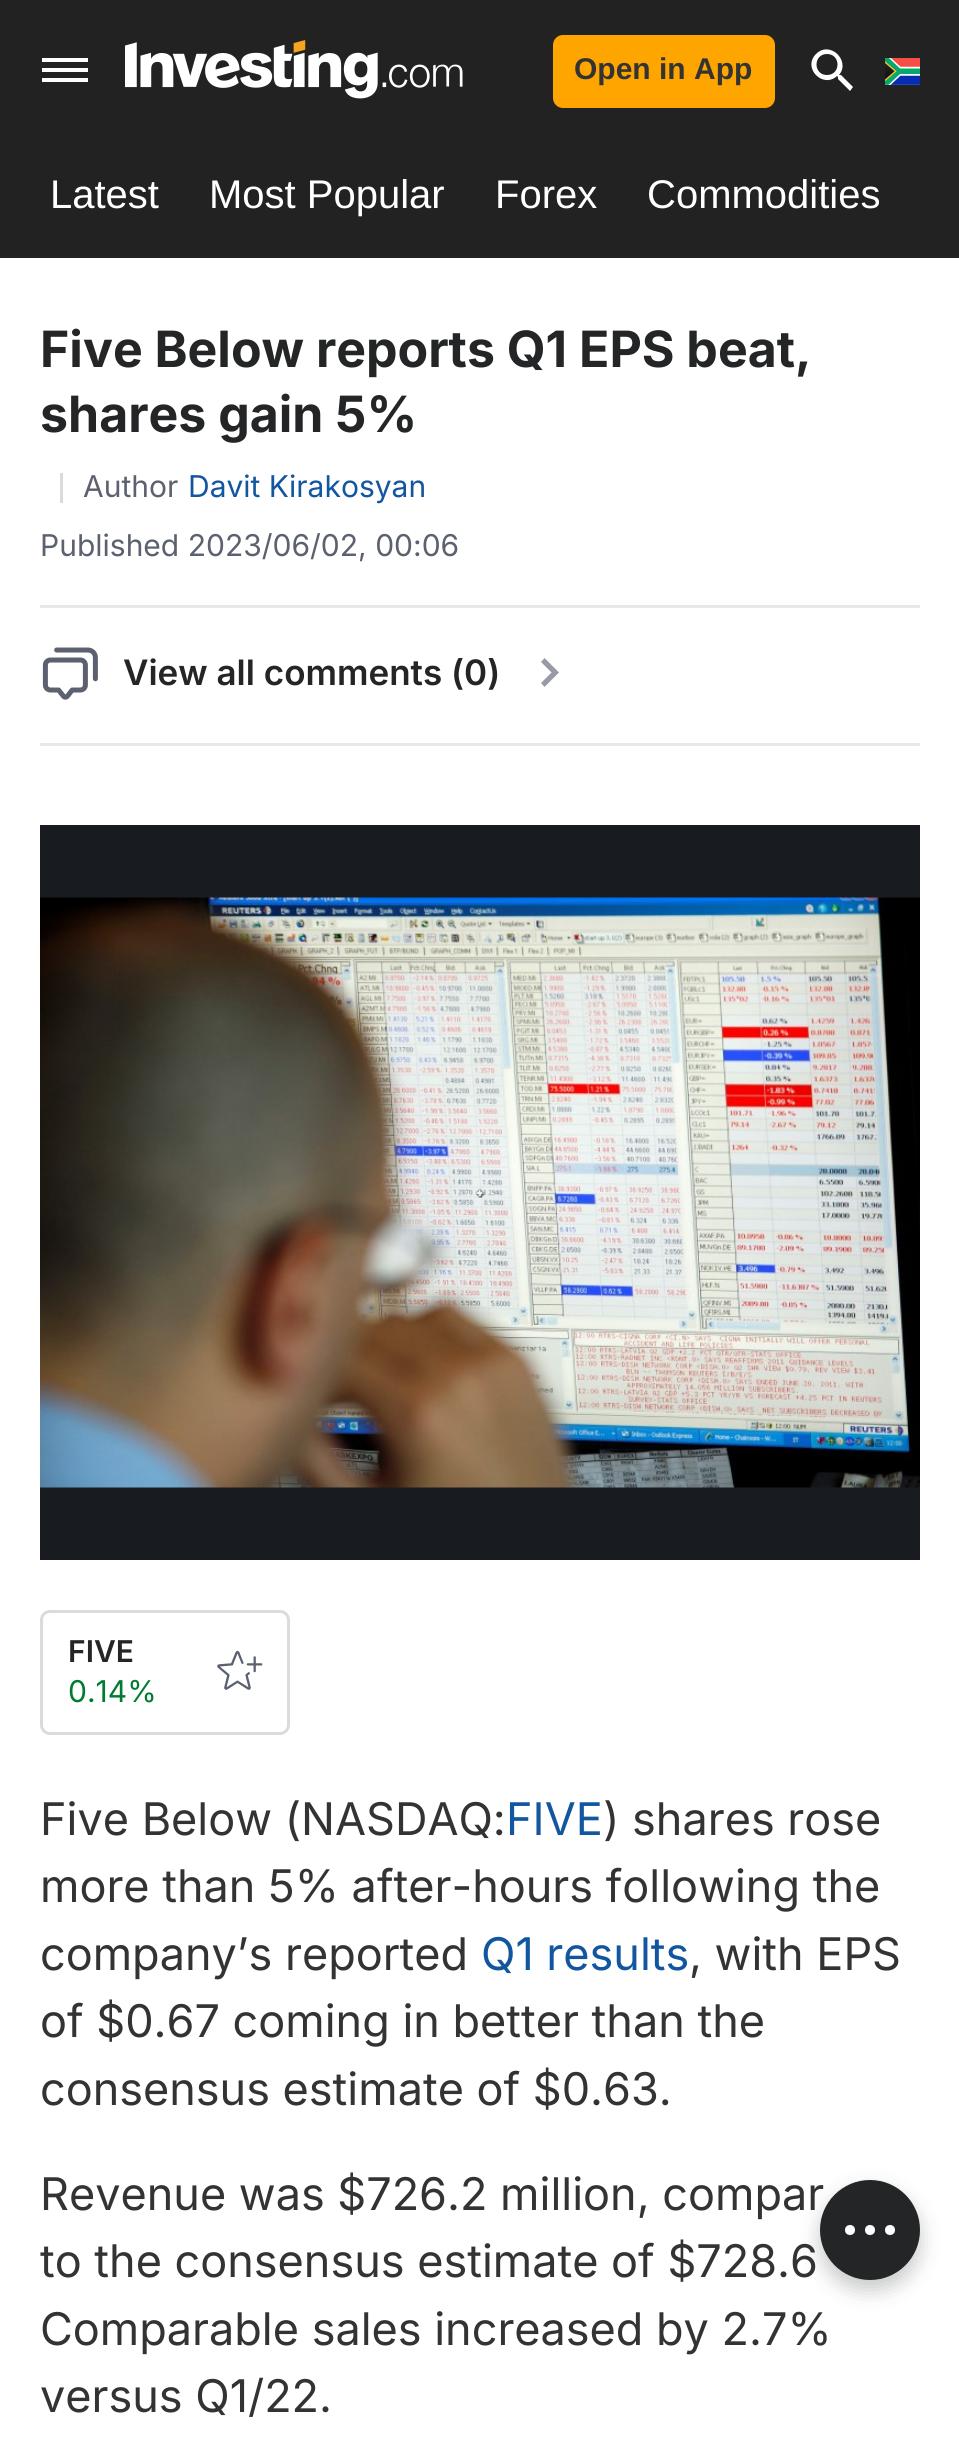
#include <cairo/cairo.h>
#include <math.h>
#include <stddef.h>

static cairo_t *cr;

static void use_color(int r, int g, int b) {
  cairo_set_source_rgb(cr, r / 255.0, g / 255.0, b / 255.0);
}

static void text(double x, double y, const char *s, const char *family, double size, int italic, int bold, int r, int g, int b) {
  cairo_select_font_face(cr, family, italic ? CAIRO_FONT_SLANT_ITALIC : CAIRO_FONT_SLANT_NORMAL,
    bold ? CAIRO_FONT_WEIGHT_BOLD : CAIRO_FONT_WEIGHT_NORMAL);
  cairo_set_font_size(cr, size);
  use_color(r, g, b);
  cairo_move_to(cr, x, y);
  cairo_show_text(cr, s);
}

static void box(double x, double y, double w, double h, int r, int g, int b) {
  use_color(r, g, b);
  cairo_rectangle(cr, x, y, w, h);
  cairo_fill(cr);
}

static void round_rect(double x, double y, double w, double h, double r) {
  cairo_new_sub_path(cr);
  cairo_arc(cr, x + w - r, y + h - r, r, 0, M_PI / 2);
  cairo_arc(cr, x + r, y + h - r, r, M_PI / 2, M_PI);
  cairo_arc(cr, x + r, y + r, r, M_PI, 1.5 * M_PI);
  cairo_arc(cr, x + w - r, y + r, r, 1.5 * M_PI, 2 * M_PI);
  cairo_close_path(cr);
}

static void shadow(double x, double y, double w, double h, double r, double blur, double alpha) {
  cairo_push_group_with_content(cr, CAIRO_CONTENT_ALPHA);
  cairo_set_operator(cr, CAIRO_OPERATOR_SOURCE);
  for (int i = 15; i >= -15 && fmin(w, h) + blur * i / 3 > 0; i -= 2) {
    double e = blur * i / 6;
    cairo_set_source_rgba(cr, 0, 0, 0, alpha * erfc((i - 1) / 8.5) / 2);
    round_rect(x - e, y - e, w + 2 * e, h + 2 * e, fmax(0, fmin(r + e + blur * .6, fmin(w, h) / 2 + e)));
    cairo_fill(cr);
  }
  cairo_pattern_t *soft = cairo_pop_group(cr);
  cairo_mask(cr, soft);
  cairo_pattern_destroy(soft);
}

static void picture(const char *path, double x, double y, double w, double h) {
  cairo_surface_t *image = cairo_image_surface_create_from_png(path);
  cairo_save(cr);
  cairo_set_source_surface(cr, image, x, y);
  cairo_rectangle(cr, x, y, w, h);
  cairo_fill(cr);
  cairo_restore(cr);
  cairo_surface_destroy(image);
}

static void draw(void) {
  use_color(255, 255, 255);
  cairo_paint(cr);
  box(0, 0, 959, 258, 34, 34, 34);
  use_color(255, 255, 255);
  cairo_set_fill_rule(cr, CAIRO_FILL_RULE_EVEN_ODD);
  cairo_new_path(cr);
  cairo_move_to(cr, 42, 82);
  cairo_line_to(cr, 88, 82);
  cairo_line_to(cr, 88, 78);
  cairo_line_to(cr, 42, 78);
  cairo_close_path(cr);
  cairo_move_to(cr, 42, 72);
  cairo_line_to(cr, 88, 72);
  cairo_line_to(cr, 88, 68);
  cairo_line_to(cr, 42, 68);
  cairo_close_path(cr);
  cairo_move_to(cr, 42, 58);
  cairo_line_to(cr, 42, 62);
  cairo_line_to(cr, 88, 62);
  cairo_line_to(cr, 88, 58);
  cairo_close_path(cr);
  cairo_fill(cr);
  picture("img_01.png", 125, 40, 338, 59);
  use_color(255, 165, 0);
  round_rect(554.5, 36.5, 219, 70, 8.5);
  cairo_fill_preserve(cr);
  cairo_set_line_width(cr, 3);
  cairo_stroke(cr);
  use_color(255, 255, 255);
  cairo_set_fill_rule(cr, CAIRO_FILL_RULE_WINDING);
  cairo_new_path(cr);
  cairo_move_to(cr, 841, 75);
  cairo_line_to(cr, 839, 75);
  cairo_curve_to(cr, 851, 61, 830, 40, 816, 54);
  cairo_curve_to(cr, 802, 68, 823, 89, 837, 76);
  cairo_line_to(cr, 838, 77);
  cairo_line_to(cr, 838, 79);
  cairo_line_to(cr, 850, 91);
  cairo_line_to(cr, 853, 87);
  cairo_close_path(cr);
  cairo_move_to(cr, 827, 75);
  cairo_curve_to(cr, 813, 75, 813, 54, 827, 54);
  cairo_curve_to(cr, 841, 54, 841, 75, 827, 75);
  cairo_close_path(cr);
  cairo_fill(cr);
  picture("img_02.png", 885, 58, 35, 27);
  box(60, 473, 3, 30, 217, 220, 223);
  box(40, 605, 880, 3, 230, 233, 235);
  picture("img_03.png", 42, 647, 56, 53);
  use_color(151, 155, 163);
  cairo_set_fill_rule(cr, CAIRO_FILL_RULE_EVEN_ODD);
  cairo_new_path(cr);
  cairo_move_to(cr, 559, 672.5);
  cairo_line_to(cr, 544.5, 687);
  cairo_line_to(cr, 541, 683);
  cairo_line_to(cr, 551.5, 672.5);
  cairo_line_to(cr, 541, 662);
  cairo_line_to(cr, 544.5, 658);
  cairo_close_path(cr);
  cairo_fill(cr);
  box(40, 743, 880, 3, 230, 233, 235);
  box(40, 825, 880, 735, 24, 28, 33);
  picture("img_04.png", 40, 897, 880, 591);
  round_rect(41.5, 1611.5, 247, 122, 8.5);
  use_color(217, 220, 223);
  cairo_stroke(cr);
  picture("img_05.png", 217, 1651, 46, 39);
  use_color(35, 37, 38);
  shadow(820, 2190, 100, 100, 50, 10, 0.25);
  text(574, 79, "Open in App", "Liberation Sans", 30, 0, 1, 51, 51, 51);
  text(50, 208, "Latest", "Liberation Sans", 40, 0, 0, 255, 255, 255);
  text(209, 208, "Most Popular", "Liberation Sans", 40, 0, 0, 255, 255, 255);
  text(495, 208, "Forex", "Liberation Sans", 40, 0, 0, 255, 255, 255);
  text(647, 208, "Commodities", "Liberation Sans", 40, 0, 0, 255, 255, 255);
  text(40, 367, "Five Below reports Q1 EPS beat,", "Inter", 50, 0, 1, 35, 37, 38);
  text(40, 432, "shares gain 5%", "Inter", 50, 0, 1, 35, 37, 38);
  text(83, 497, "Author", "Inter", 30, 0, 0, 91, 97, 110);
  text(188, 497, "Davit Kirakosyan", "Inter", 30, 0, 0, 18, 86, 160);
  text(40, 556, "Published 2023/06/02, 00:06", "Inter", 30, 0, 0, 91, 97, 110);
  text(123, 685, "View all comments (0)", "Inter SemiBold", 35, 0, 0, 35, 37, 38);
  text(68, 1662, "FIVE", "Inter SemiBold", 30, 0, 0, 35, 37, 38);
  text(68, 1702, "0.14%", "Inter", 30, 0, 0, 0, 124, 50);
  text(40, 1835, "Five Below (NASDAQ:", "Inter", 45, 0, 0, 51, 51, 51);
  text(506, 1835, "FIVE", "Inter", 45, 0, 0, 18, 86, 160);
  text(603, 1835, ") shares rose", "Inter", 45, 0, 0, 51, 51, 51);
  text(40, 1902, "more than 5% after-hours following the", "Inter", 45, 0, 0, 51, 51, 51);
  text(40, 1970, "company’s reported", "Inter", 45, 0, 0, 51, 51, 51);
  text(481, 1970, "Q1 results", "Inter", 45, 0, 0, 18, 86, 160);
  text(689, 1970, ", with EPS", "Inter", 45, 0, 0, 51, 51, 51);
  text(40, 2037, "of $0.67 coming in better than the", "Inter", 45, 0, 0, 51, 51, 51);
  text(40, 2105, "consensus estimate of $0.63.", "Inter", 45, 0, 0, 51, 51, 51);
  text(40, 2210, "Revenue was $726.2 million, compar", "Inter", 45, 0, 0, 51, 51, 51);
  text(40, 2277, "to the consensus estimate of $728.6", "Inter", 45, 0, 0, 51, 51, 51);
  text(40, 2345, "Comparable sales increased by 2.7%", "Inter", 45, 0, 0, 51, 51, 51);
  text(40, 2412, "versus Q1/22.", "Inter", 45, 0, 0, 51, 51, 51);
  use_color(35, 37, 38);
  cairo_new_path(cr);
  cairo_arc(cr, 870, 2230, 50, 0, 2 * M_PI);
  cairo_fill(cr);
  use_color(255, 255, 255);
  cairo_arc(cr, 890, 2230, 5, 0, 2 * M_PI);
  cairo_fill(cr);
  cairo_arc(cr, 850, 2230, 5, 0, 2 * M_PI);
  cairo_fill(cr);
  cairo_arc(cr, 870, 2230, 5, 0, 2 * M_PI);
  cairo_fill(cr);
}

int main(void) {
  cairo_surface_t *surface = cairo_image_surface_create(CAIRO_FORMAT_RGB24, 959, 2459);
  cr = cairo_create(surface);
  cairo_font_options_t *options = cairo_font_options_create();
  cairo_font_options_set_hint_metrics(options, CAIRO_HINT_METRICS_OFF);
  cairo_font_options_set_hint_style(options, CAIRO_HINT_STYLE_NONE);
  cairo_set_font_options(cr, options);
  cairo_set_miter_limit(cr, 4);
  draw();
  cairo_surface_write_to_png(surface, "out.png");
  cairo_font_options_destroy(options);
  cairo_destroy(cr);
  cairo_surface_destroy(surface);
  return 0;
}
